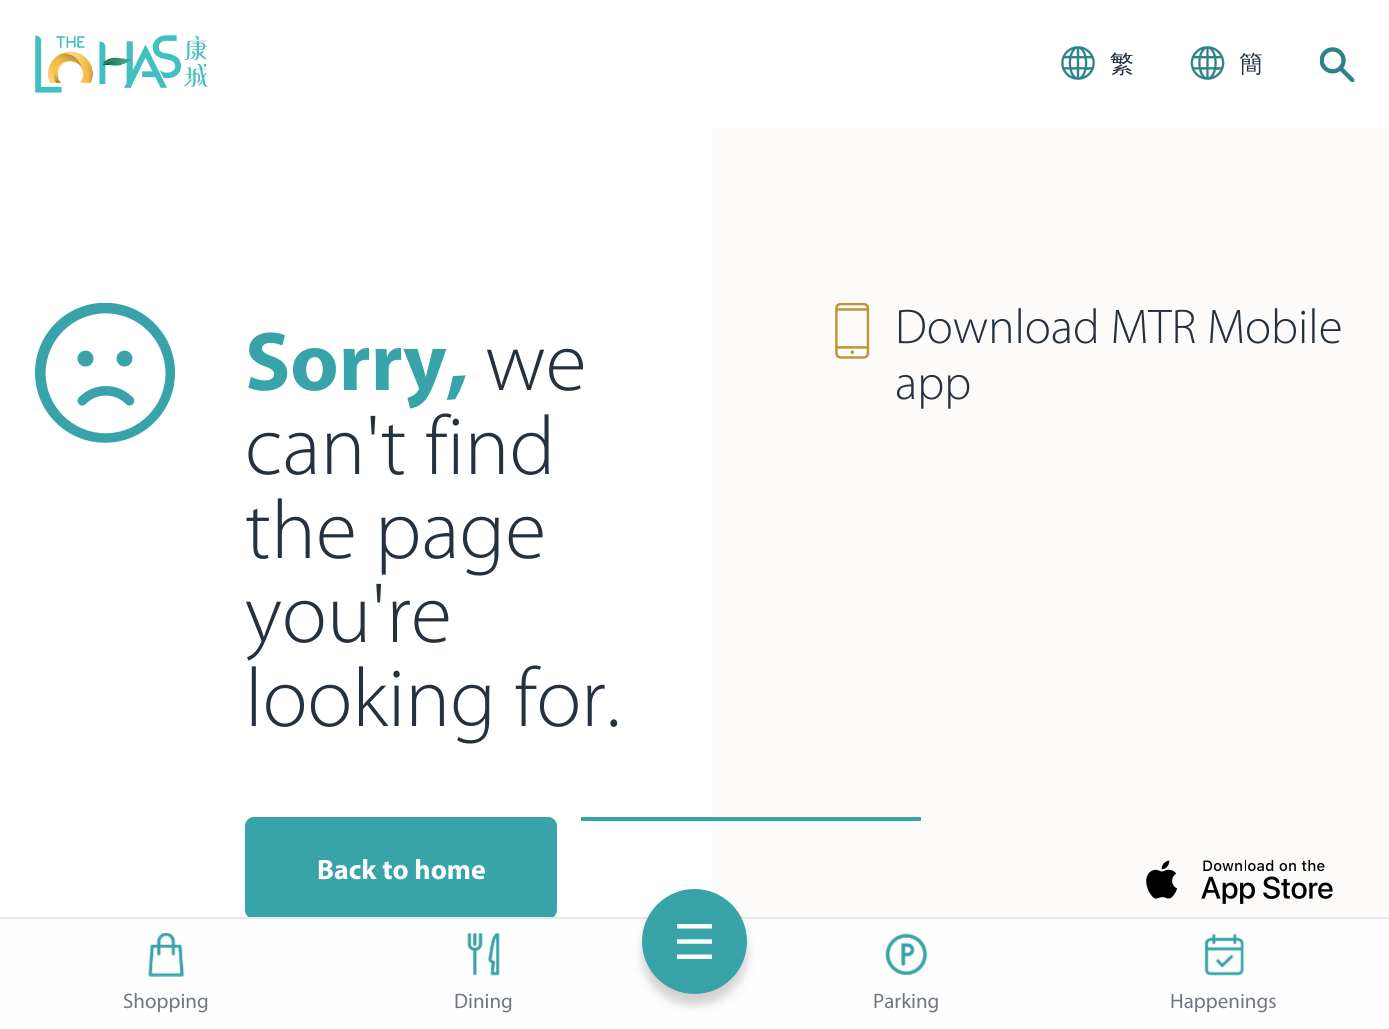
#include <cairo/cairo.h>
#include <math.h>
#include <stddef.h>

static cairo_t *cr;

static void use_color(int r, int g, int b) {
  cairo_set_source_rgb(cr, r / 255.0, g / 255.0, b / 255.0);
}

static void text(double x, double y, const char *s, const char *family, double size, int italic, int bold, int r, int g, int b) {
  cairo_select_font_face(cr, family, italic ? CAIRO_FONT_SLANT_ITALIC : CAIRO_FONT_SLANT_NORMAL,
    bold ? CAIRO_FONT_WEIGHT_BOLD : CAIRO_FONT_WEIGHT_NORMAL);
  cairo_set_font_size(cr, size);
  use_color(r, g, b);
  cairo_move_to(cr, x, y);
  cairo_show_text(cr, s);
}

static void box(double x, double y, double w, double h, int r, int g, int b) {
  use_color(r, g, b);
  cairo_rectangle(cr, x, y, w, h);
  cairo_fill(cr);
}

static void round_rect(double x, double y, double w, double h, double r) {
  cairo_new_sub_path(cr);
  cairo_arc(cr, x + w - r, y + h - r, r, 0, M_PI / 2);
  cairo_arc(cr, x + r, y + h - r, r, M_PI / 2, M_PI);
  cairo_arc(cr, x + r, y + r, r, M_PI, 1.5 * M_PI);
  cairo_arc(cr, x + w - r, y + r, r, 1.5 * M_PI, 2 * M_PI);
  cairo_close_path(cr);
}

static void shadow(double x, double y, double w, double h, double r, double blur, double alpha) {
  cairo_push_group_with_content(cr, CAIRO_CONTENT_ALPHA);
  cairo_set_operator(cr, CAIRO_OPERATOR_SOURCE);
  for (int i = 15; i >= -15 && fmin(w, h) + blur * i / 3 > 0; i -= 2) {
    double e = blur * i / 6;
    cairo_set_source_rgba(cr, 0, 0, 0, alpha * erfc((i - 1) / 8.5) / 2);
    round_rect(x - e, y - e, w + 2 * e, h + 2 * e, fmax(0, fmin(r + e + blur * .6, fmin(w, h) / 2 + e)));
    cairo_fill(cr);
  }
  cairo_pattern_t *soft = cairo_pop_group(cr);
  cairo_mask(cr, soft);
  cairo_pattern_destroy(soft);
}

static void picture(const char *path, double x, double y, double w, double h) {
  cairo_surface_t *image = cairo_image_surface_create_from_png(path);
  cairo_save(cr);
  cairo_set_source_surface(cr, image, x, y);
  cairo_rectangle(cr, x, y, w, h);
  cairo_fill(cr);
  cairo_restore(cr);
  cairo_surface_destroy(image);
}

static void draw(void) {
  use_color(252, 251, 249);
  cairo_paint(cr);
  box(0, 0, 1389, 128, 255, 255, 255);
  picture("img_01.png", 35, 35, 174, 58);
  picture("img_02.png", 1061, 46, 34, 34);
  picture("img_03.png", 1190, 46, 35, 34);
  picture("img_04.png", 1320, 47, 35, 35);
  box(0, 919, 1389, 110, 254, 254, 254);
  box(0, 128, 712, 789, 255, 255, 255);
  use_color(56, 163, 169);
  round_rect(246, 818, 310, 100, 8);
  cairo_fill_preserve(cr);
  cairo_stroke(cr);
  box(0, 917, 1389, 2, 231, 231, 231);
  use_color(0, 0, 0);
  shadow(642, 900, 105, 105, 52.5, 5, 0.18);
  use_color(56, 163, 169);
  cairo_arc(cr, 694.5, 941.5, 52.5, 0, 2 * M_PI);
  cairo_fill(cr);
  picture("img_05.png", 677, 924, 35, 35);
  picture("img_06.png", 148, 933, 37, 44);
  picture("img_07.png", 467, 933, 33, 43);
  picture("img_08.png", 885, 933, 43, 43);
  picture("img_09.png", 1204, 933, 40, 43);
  picture("img_10.png", 35, 303, 140, 140);
  picture("img_11.png", 835, 303, 35, 56);
  box(581, 817, 340, 4, 56, 163, 169);
  picture("img_12.png", 1146, 860, 187, 44);
  text(1110, 72, "繁", "WenQuanYi Zen Hei Medium", 24, 0, 0, 37, 49, 62);
  text(1239, 72, "簡", "WenQuanYi Zen Hei Medium", 24, 0, 0, 37, 49, 62);
  text(123, 1008, "Shopping", "Myriad", 21, 0, 0, 112, 119, 127);
  text(454, 1008, "Dining", "Myriad", 21, 0, 0, 112, 119, 127);
  text(873, 1008, "Parking", "Myriad", 21, 0, 0, 112, 119, 127);
  text(1170, 1008, "Happenings", "Myriad", 21, 0, 0, 112, 119, 127);
  text(245, 390, "Sorry,", "Myriad", 84, 0, 1, 56, 163, 169);
  text(485, 390, "we", "Myriad Light", 84, 0, 0, 37, 49, 62);
  text(245, 474, "can't find", "Myriad Light", 84, 0, 0, 37, 49, 62);
  text(245, 558, "the page", "Myriad Light", 84, 0, 0, 37, 49, 62);
  text(245, 642, "you're", "Myriad Light", 84, 0, 0, 37, 49, 62);
  text(245, 726, "looking for.", "Myriad Light", 84, 0, 0, 37, 49, 62);
  text(895, 343, "Download MTR Mobile", "Myriad Light", 49, 0, 0, 37, 49, 62);
  text(895, 399, "app", "Myriad Light", 49, 0, 0, 37, 49, 62);
  text(317, 879, "Back to home", "Myriad", 28, 0, 1, 255, 255, 255);
}

int main(void) {
  cairo_surface_t *surface = cairo_image_surface_create(CAIRO_FORMAT_RGB24, 1389, 1029);
  cr = cairo_create(surface);
  cairo_font_options_t *options = cairo_font_options_create();
  cairo_font_options_set_hint_metrics(options, CAIRO_HINT_METRICS_OFF);
  cairo_font_options_set_hint_style(options, CAIRO_HINT_STYLE_NONE);
  cairo_set_font_options(cr, options);
  cairo_set_miter_limit(cr, 4);
  draw();
  cairo_surface_write_to_png(surface, "out.png");
  cairo_font_options_destroy(options);
  cairo_destroy(cr);
  cairo_surface_destroy(surface);
  return 0;
}
